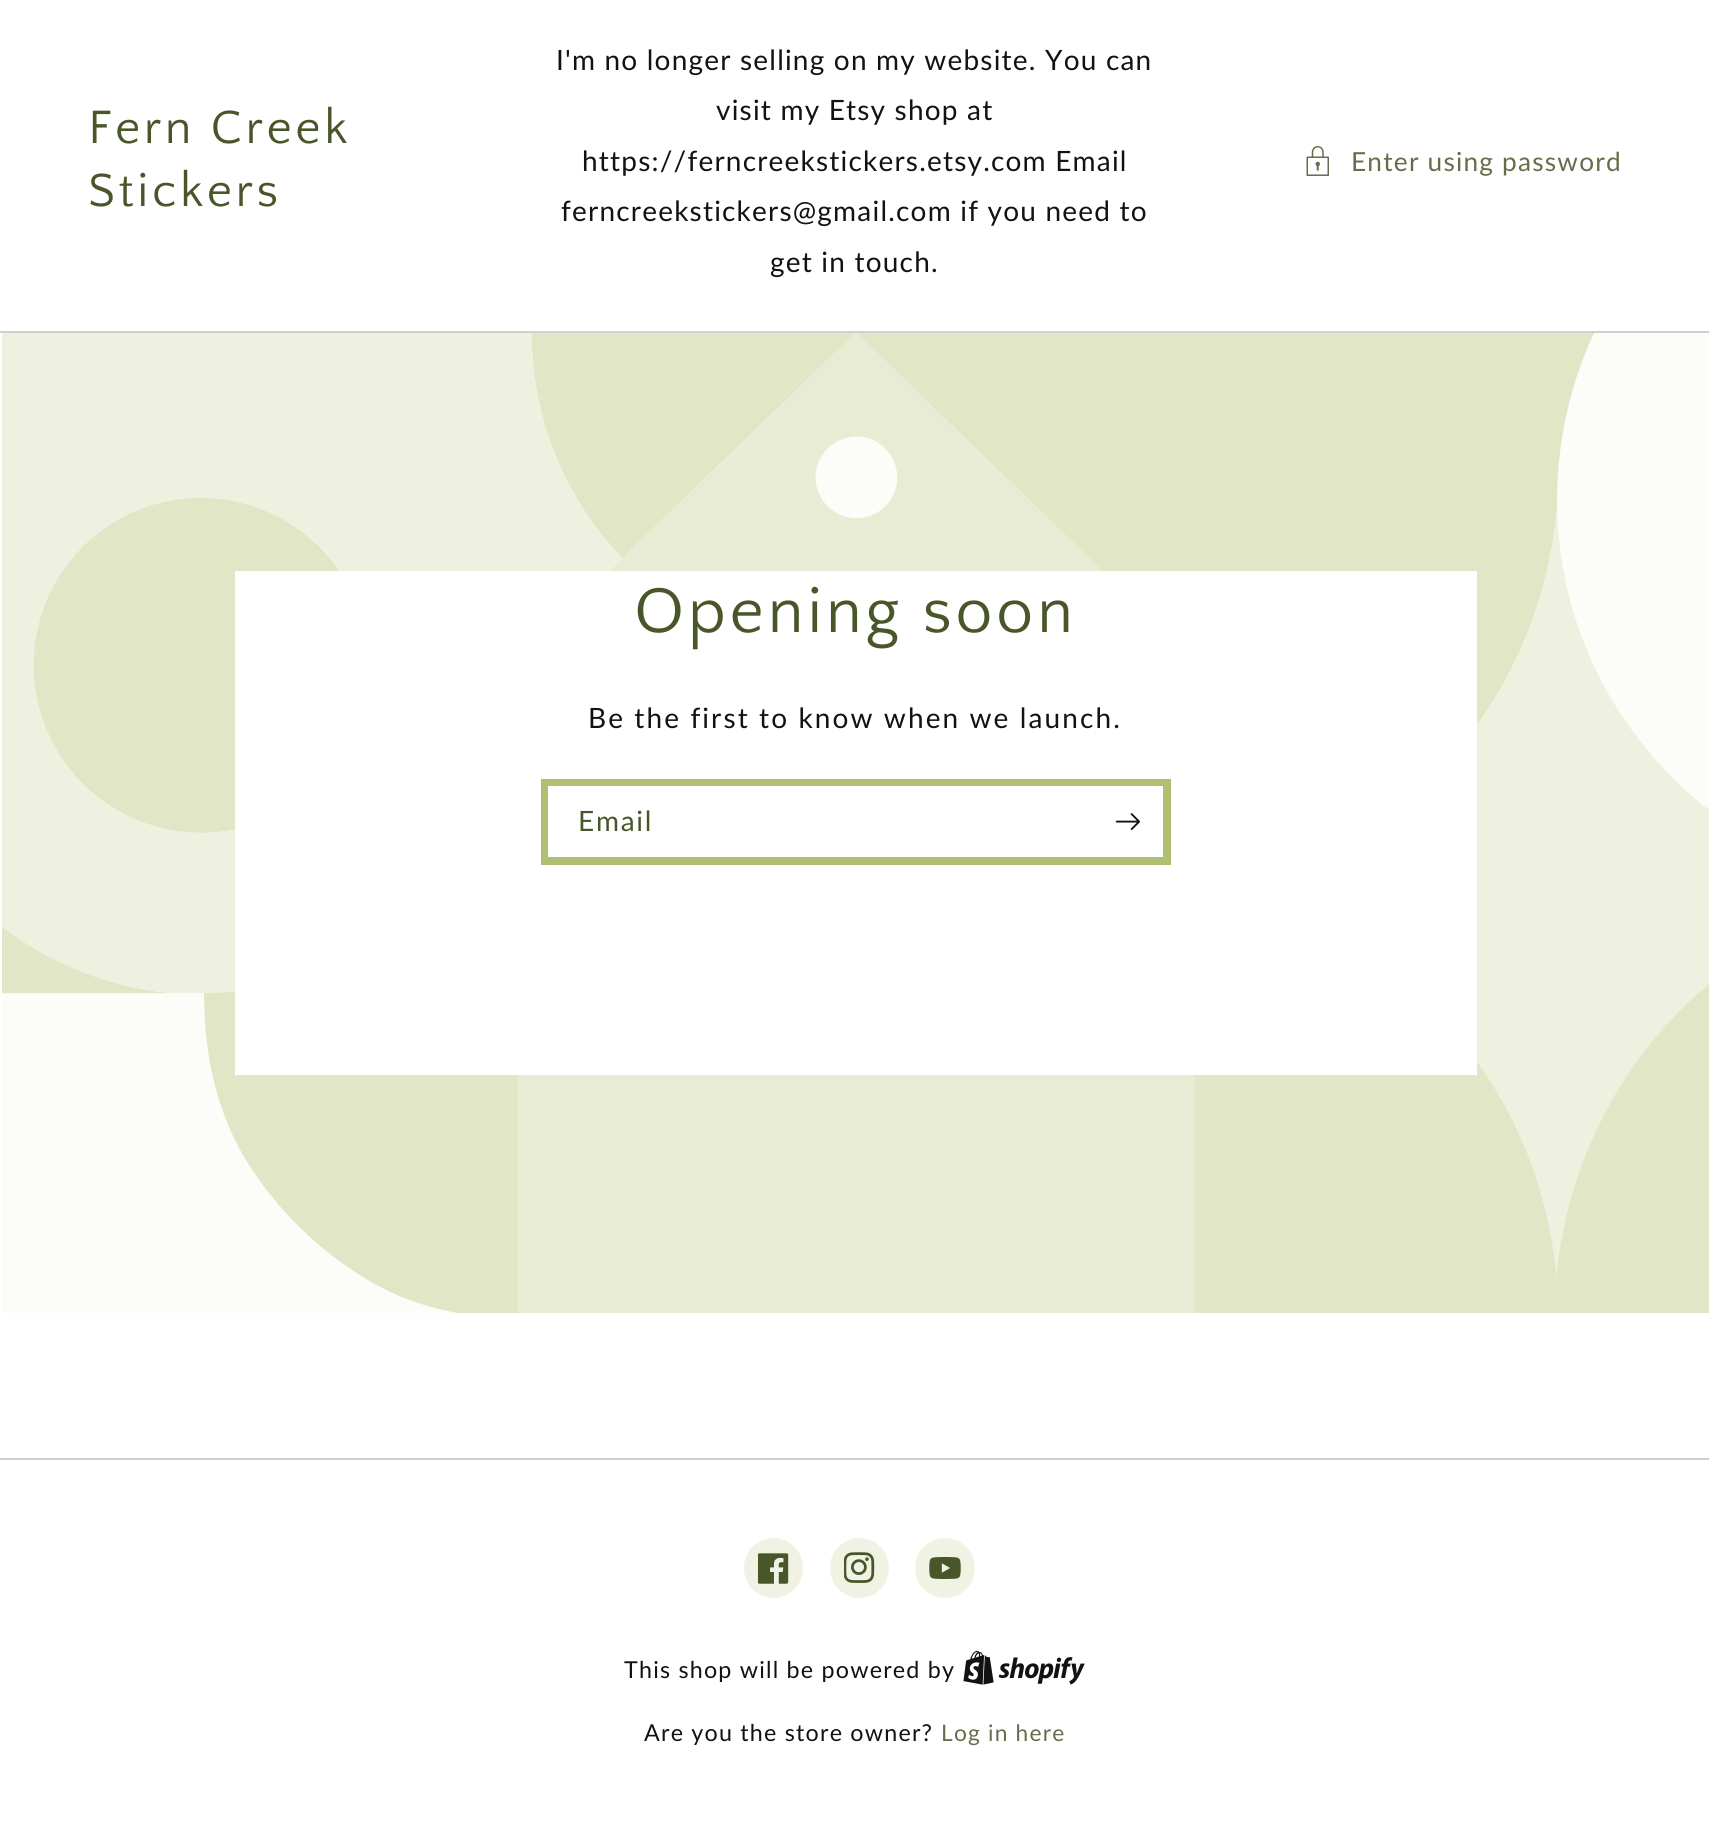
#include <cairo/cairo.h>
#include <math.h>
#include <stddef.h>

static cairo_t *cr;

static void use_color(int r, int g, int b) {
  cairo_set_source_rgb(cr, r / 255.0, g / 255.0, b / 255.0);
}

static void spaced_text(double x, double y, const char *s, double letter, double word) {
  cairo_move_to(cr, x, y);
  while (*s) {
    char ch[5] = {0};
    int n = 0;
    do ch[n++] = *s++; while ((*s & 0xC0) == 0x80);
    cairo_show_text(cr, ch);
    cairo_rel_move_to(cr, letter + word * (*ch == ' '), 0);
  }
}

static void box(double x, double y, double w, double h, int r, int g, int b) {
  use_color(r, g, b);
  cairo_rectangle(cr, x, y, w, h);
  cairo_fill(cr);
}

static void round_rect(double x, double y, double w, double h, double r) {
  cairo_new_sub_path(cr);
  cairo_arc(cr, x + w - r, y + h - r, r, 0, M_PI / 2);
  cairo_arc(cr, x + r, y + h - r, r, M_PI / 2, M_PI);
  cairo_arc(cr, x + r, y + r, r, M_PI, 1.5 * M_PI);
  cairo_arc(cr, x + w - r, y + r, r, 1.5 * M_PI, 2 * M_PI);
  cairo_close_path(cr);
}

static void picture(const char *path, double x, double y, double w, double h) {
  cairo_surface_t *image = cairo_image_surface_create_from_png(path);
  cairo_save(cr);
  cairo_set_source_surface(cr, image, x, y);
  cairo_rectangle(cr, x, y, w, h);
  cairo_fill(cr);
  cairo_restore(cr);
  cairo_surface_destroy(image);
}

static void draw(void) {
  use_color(255, 255, 255);
  cairo_paint(cr);
  picture("img_01.png", 1306, 146, 23, 30);
  box(0, 331, 1709, 2, 208, 208, 208);
  picture("img_02.png", 2, 333, 1707, 980);
  box(235, 571, 1242, 504, 255, 255, 255);
  cairo_rectangle(cr, 543, 781, 626, 82);
  use_color(175, 192, 115);
  cairo_set_line_width(cr, 4);
  cairo_stroke(cr);
  cairo_rectangle(cr, 546, 784, 619, 75);
  cairo_stroke(cr);
  picture("img_03.png", 1115, 813, 25, 17);
  box(0, 1458, 1709, 2, 208, 208, 208);
  use_color(240, 243, 227);
  round_rect(744, 1538, 59, 60, 29.5);
  cairo_fill(cr);
  picture("img_04.png", 758, 1553, 31, 31);
  round_rect(830, 1538, 59, 60, 29.5);
  cairo_fill(cr);
  picture("img_05.png", 844, 1552, 31, 31);
  cairo_arc(cr, 945, 1568, 30, 0, 2 * M_PI);
  cairo_fill(cr);
  picture("img_06.png", 929, 1557, 32, 22);
  picture("img_07.png", 963, 1650, 122, 35);
  cairo_select_font_face(cr, "Quattrocento Sans", CAIRO_FONT_SLANT_NORMAL, CAIRO_FONT_WEIGHT_NORMAL);
  cairo_set_font_size(cr, 49);
  use_color(73, 86, 42);
  spaced_text(88, 143, "Fern Creek", 3.5, 0);
  spaced_text(88, 206, "Stickers", 3.5, 0);
  cairo_select_font_face(cr, "Lato", CAIRO_FONT_SLANT_NORMAL, CAIRO_FONT_WEIGHT_NORMAL);
  cairo_set_font_size(cr, 28);
  use_color(18, 18, 18);
  spaced_text(556, 70, "I'm no longer selling on my website. You can", 1.2, 0);
  spaced_text(716, 120, "visit my Etsy shop at", 1.2, 0);
  spaced_text(582, 171, "https://ferncreekstickers.etsy.com Email", 1.2, 0);
  spaced_text(561, 221, "ferncreekstickers@gmail.com if you need to", 1.2, 0);
  spaced_text(770, 272, "get in touch.", 1.2, 0);
  cairo_set_font_size(cr, 26.25);
  use_color(100, 111, 74);
  spaced_text(1351, 171, "Enter using password", 1.2, 0);
  cairo_select_font_face(cr, "Quattrocento Sans", CAIRO_FONT_SLANT_NORMAL, CAIRO_FONT_WEIGHT_NORMAL);
  cairo_set_font_size(cr, 66.5);
  use_color(73, 86, 42);
  spaced_text(634, 632, "Opening soon", 3.5, 0);
  cairo_select_font_face(cr, "Lato", CAIRO_FONT_SLANT_NORMAL, CAIRO_FONT_WEIGHT_NORMAL);
  cairo_set_font_size(cr, 28);
  use_color(18, 18, 18);
  spaced_text(588, 728, "Be the first to know when we launch.", 2.1, 0);
  use_color(73, 86, 42);
  spaced_text(578, 831, "Email", 1.75, 0);
  cairo_set_font_size(cr, 23.3);
  use_color(18, 18, 18);
  spaced_text(624, 1678, "This shop will be powered by", 1.2, 0);
  spaced_text(644, 1741, "Are you the store owner?", 1.2, 0);
  cairo_set_font_size(cr, 22.75);
  use_color(100, 111, 74);
  spaced_text(941, 1741, "Log in here", 1.2, 0);
}

int main(void) {
  cairo_surface_t *surface = cairo_image_surface_create(CAIRO_FORMAT_RGB24, 1709, 1824);
  cr = cairo_create(surface);
  cairo_font_options_t *options = cairo_font_options_create();
  cairo_font_options_set_hint_metrics(options, CAIRO_HINT_METRICS_OFF);
  cairo_font_options_set_hint_style(options, CAIRO_HINT_STYLE_NONE);
  cairo_set_font_options(cr, options);
  cairo_set_miter_limit(cr, 4);
  draw();
  cairo_surface_write_to_png(surface, "out.png");
  cairo_font_options_destroy(options);
  cairo_destroy(cr);
  cairo_surface_destroy(surface);
  return 0;
}
